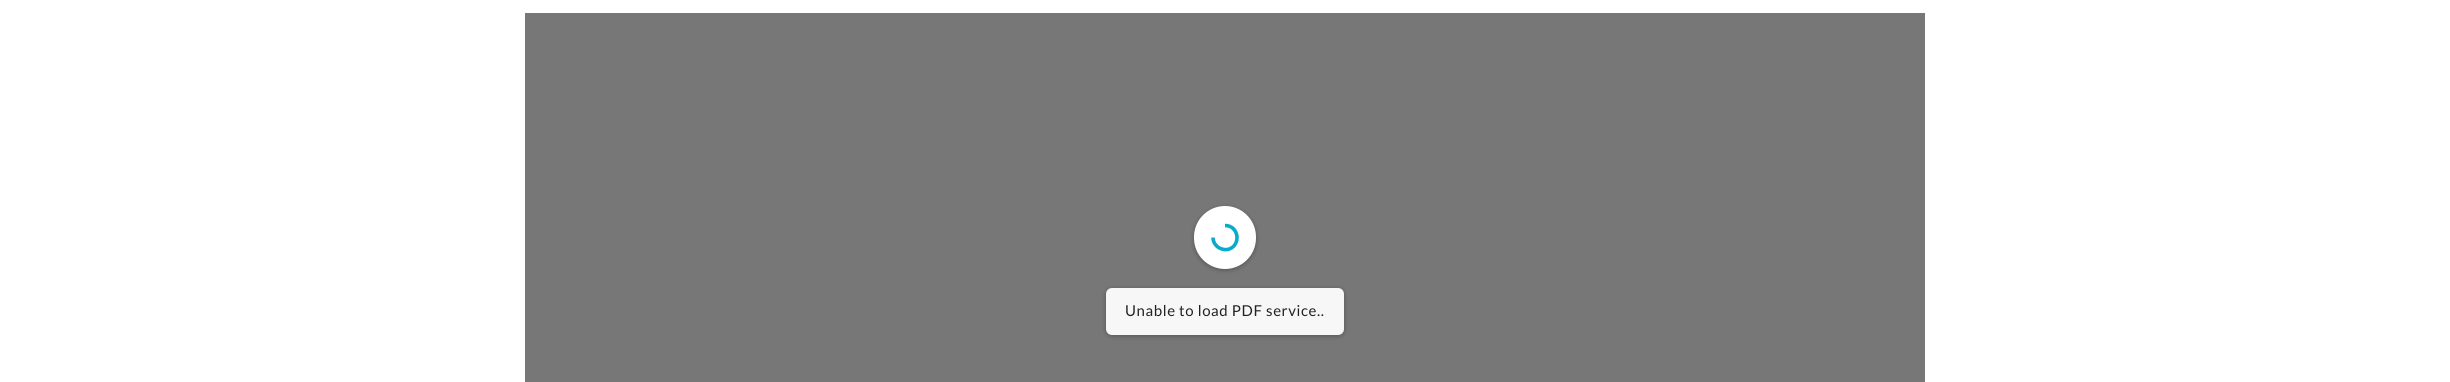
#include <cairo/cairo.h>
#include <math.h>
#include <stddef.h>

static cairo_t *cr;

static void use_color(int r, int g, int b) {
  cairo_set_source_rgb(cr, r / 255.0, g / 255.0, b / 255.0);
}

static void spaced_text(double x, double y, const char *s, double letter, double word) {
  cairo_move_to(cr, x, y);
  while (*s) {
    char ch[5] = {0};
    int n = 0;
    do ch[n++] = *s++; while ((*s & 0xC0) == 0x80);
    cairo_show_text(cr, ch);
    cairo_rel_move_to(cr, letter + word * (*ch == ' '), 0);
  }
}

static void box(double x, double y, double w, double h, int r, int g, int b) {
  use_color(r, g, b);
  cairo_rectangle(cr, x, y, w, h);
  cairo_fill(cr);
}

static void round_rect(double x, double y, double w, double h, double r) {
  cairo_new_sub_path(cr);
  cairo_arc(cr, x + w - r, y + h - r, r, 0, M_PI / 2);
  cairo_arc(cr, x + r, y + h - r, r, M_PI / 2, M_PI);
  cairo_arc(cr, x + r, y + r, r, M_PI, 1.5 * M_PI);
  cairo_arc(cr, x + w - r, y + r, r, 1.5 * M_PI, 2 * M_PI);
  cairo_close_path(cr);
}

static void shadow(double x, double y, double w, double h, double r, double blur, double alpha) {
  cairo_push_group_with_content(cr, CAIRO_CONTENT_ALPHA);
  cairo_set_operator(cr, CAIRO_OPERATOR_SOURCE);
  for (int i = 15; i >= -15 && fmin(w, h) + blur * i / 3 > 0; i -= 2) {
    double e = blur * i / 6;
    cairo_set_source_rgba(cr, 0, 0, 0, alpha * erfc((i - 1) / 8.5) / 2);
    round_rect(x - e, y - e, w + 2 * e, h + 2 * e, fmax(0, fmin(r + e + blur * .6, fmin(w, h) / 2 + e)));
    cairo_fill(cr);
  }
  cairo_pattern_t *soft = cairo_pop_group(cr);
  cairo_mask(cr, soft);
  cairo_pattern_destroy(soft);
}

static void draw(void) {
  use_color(255, 255, 255);
  cairo_paint(cr);
  box(525, 13, 1400, 369, 119, 119, 119);
  use_color(0, 0, 0);
  shadow(1194, 208, 62, 62, 31, 2.5, 0.3);
  use_color(255, 255, 255);
  round_rect(1194, 206, 62, 63, 31);
  cairo_fill(cr);
  cairo_new_path(cr);
  cairo_move_to(cr, 1225, 225.5);
  cairo_curve_to(cr, 1239.5, 225.5, 1241.5, 246.5, 1227.5, 249.5);
  cairo_curve_to(cr, 1224.5, 250, 1221, 249, 1218.5, 247.5);
  cairo_curve_to(cr, 1215, 245, 1213, 241.5, 1213, 237.5);
  use_color(7, 171, 204);
  cairo_set_line_width(cr, 3.6);
  cairo_stroke(cr);
  use_color(0, 0, 0);
  shadow(1106, 289, 238, 47, 6, 2.5, 0.3);
  use_color(247, 247, 247);
  round_rect(1106, 288, 238, 47, 6);
  cairo_fill(cr);
  cairo_select_font_face(cr, "Lato", CAIRO_FONT_SLANT_NORMAL, CAIRO_FONT_WEIGHT_NORMAL);
  cairo_set_font_size(cr, 15);
  use_color(34, 34, 34);
  spaced_text(1125, 316, "Unable to load PDF service..", 0.6, 0);
}

int main(void) {
  cairo_surface_t *surface = cairo_image_surface_create(CAIRO_FORMAT_RGB24, 2450, 382);
  cr = cairo_create(surface);
  cairo_font_options_t *options = cairo_font_options_create();
  cairo_font_options_set_hint_metrics(options, CAIRO_HINT_METRICS_OFF);
  cairo_font_options_set_hint_style(options, CAIRO_HINT_STYLE_NONE);
  cairo_set_font_options(cr, options);
  cairo_set_miter_limit(cr, 4);
  draw();
  cairo_surface_write_to_png(surface, "out.png");
  cairo_font_options_destroy(options);
  cairo_destroy(cr);
  cairo_surface_destroy(surface);
  return 0;
}
